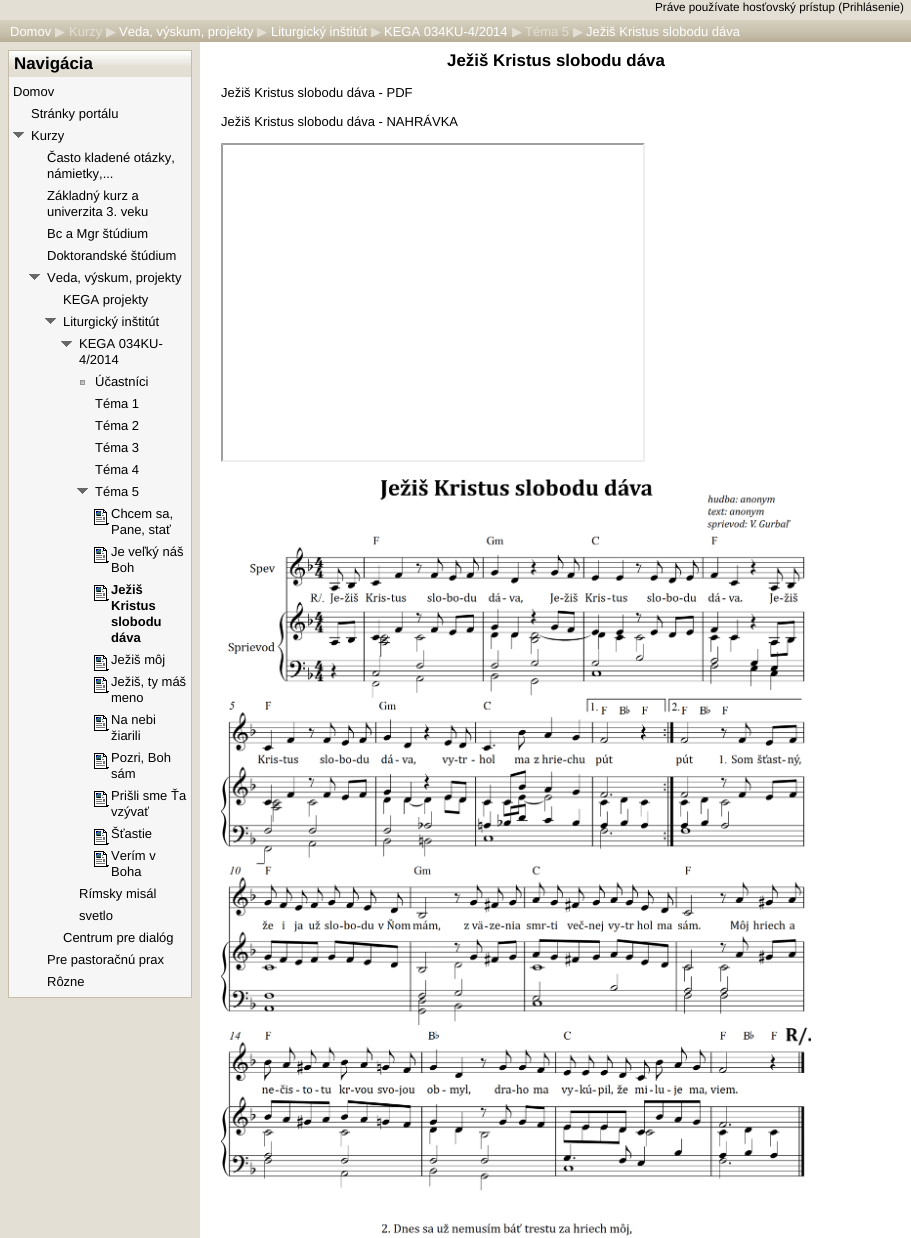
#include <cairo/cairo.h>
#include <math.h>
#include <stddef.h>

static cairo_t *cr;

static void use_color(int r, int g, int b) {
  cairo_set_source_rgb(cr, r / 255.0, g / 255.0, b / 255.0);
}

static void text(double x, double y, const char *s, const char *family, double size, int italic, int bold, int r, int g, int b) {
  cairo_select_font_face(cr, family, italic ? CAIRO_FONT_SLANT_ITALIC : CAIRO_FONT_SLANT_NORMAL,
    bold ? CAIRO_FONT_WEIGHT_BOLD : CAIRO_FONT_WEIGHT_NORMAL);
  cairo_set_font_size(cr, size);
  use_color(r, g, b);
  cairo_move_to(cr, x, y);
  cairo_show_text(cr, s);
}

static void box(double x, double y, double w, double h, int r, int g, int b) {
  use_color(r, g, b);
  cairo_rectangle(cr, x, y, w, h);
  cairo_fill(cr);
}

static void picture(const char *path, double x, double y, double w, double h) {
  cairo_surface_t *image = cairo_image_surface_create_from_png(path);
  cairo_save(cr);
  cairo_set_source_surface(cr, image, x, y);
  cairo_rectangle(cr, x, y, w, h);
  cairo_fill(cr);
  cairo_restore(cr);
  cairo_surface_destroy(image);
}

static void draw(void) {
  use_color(227, 223, 212);
  cairo_paint(cr);
  picture("img_01.png", 0, 20, 911, 22);
  box(200, 42, 711, 1196, 255, 255, 255);
  cairo_rectangle(cr, 8.5, 50.5, 183, 947);
  use_color(198, 189, 168);
  cairo_set_line_width(cr, 1);
  cairo_stroke(cr);
  picture("img_02.png", 9, 51, 182, 15);
  box(9, 77, 182, 920, 246, 246, 246);
  picture("img_03.png", 13, 132, 11, 6);
  picture("img_03.png", 29, 274, 11, 6);
  picture("img_03.png", 45, 318, 11, 6);
  picture("img_03.png", 61, 341, 11, 6);
  picture("img_04.png", 80, 380, 5, 5);
  picture("img_03.png", 77, 488, 11, 6);
  picture("img_05.png", 94, 509, 15, 16);
  picture("img_05.png", 94, 547, 15, 16);
  picture("img_05.png", 94, 585, 15, 16);
  picture("img_05.png", 94, 655, 15, 16);
  picture("img_05.png", 94, 677, 15, 16);
  picture("img_05.png", 94, 715, 15, 16);
  picture("img_05.png", 94, 753, 15, 16);
  picture("img_05.png", 94, 791, 15, 16);
  picture("img_05.png", 94, 829, 15, 16);
  picture("img_05.png", 94, 851, 15, 16);
  use_color(159, 159, 159);
  cairo_new_path(cr);
  cairo_move_to(cr, 221, 143);
  cairo_line_to(cr, 645, 143);
  cairo_line_to(cr, 643, 145);
  cairo_line_to(cr, 223, 145);
  cairo_close_path(cr);
  cairo_fill(cr);
  use_color(238, 238, 238);
  cairo_new_path(cr);
  cairo_move_to(cr, 645, 143);
  cairo_line_to(cr, 645, 462);
  cairo_line_to(cr, 643, 460);
  cairo_line_to(cr, 643, 145);
  cairo_close_path(cr);
  cairo_fill(cr);
  cairo_new_path(cr);
  cairo_move_to(cr, 645, 462);
  cairo_line_to(cr, 221, 462);
  cairo_line_to(cr, 223, 460);
  cairo_line_to(cr, 643, 460);
  cairo_close_path(cr);
  cairo_fill(cr);
  use_color(159, 159, 159);
  cairo_new_path(cr);
  cairo_move_to(cr, 221, 462);
  cairo_line_to(cr, 221, 143);
  cairo_line_to(cr, 223, 145);
  cairo_line_to(cr, 223, 460);
  cairo_close_path(cr);
  cairo_fill(cr);
  picture("img_06.png", 221, 479, 590, 757);
  text(655, 11, "Práve používate hosťovský prístup (Prihlásenie)", "Liberation Sans", 11.7, 0, 0, 0, 0, 0);
  text(10, 36, "Domov", "Liberation Sans", 13, 0, 0, 255, 255, 255);
  text(55, 36, "▶", "DejaVu Sans", 13, 0, 0, 227, 223, 212);
  text(69, 36, "Kurzy", "Liberation Sans", 13, 0, 0, 227, 223, 212);
  text(106, 36, "▶", "DejaVu Sans", 13, 0, 0, 227, 223, 212);
  text(119, 36, "Veda, výskum, projekty", "Liberation Sans", 13, 0, 0, 255, 255, 255);
  text(257, 36, "▶", "DejaVu Sans", 13, 0, 0, 227, 223, 212);
  text(271, 36, "Liturgický inštitút", "Liberation Sans", 13, 0, 0, 255, 255, 255);
  text(371, 36, "▶", "DejaVu Sans", 13, 0, 0, 227, 223, 212);
  text(384, 36, "KEGA 034KU-4/2014", "Liberation Sans", 13, 0, 0, 255, 255, 255);
  text(512, 36, "▶", "DejaVu Sans", 13, 0, 0, 227, 223, 212);
  text(525, 36, "Téma 5", "Liberation Sans", 13, 0, 0, 227, 223, 212);
  text(573, 36, "▶", "DejaVu Sans", 13, 0, 0, 227, 223, 212);
  text(586, 36, "Ježiš Kristus slobodu dáva", "Liberation Sans", 13, 0, 0, 255, 255, 255);
  text(14, 69, "Navigácia", "Liberation Sans", 16.9, 0, 1, 0, 0, 0);
  text(13, 96, "Domov", "Liberation Sans", 13, 0, 0, 0, 0, 0);
  text(31, 118, "Stránky portálu", "Liberation Sans", 13, 0, 0, 0, 0, 0);
  text(31, 140, "Kurzy", "Liberation Sans", 13, 0, 0, 0, 0, 0);
  text(47, 162, "Často kladené otázky,", "Liberation Sans", 13, 0, 0, 0, 0, 0);
  text(47, 178, "námietky,...", "Liberation Sans", 13, 0, 0, 0, 0, 0);
  text(47, 200, "Základný kurz a", "Liberation Sans", 13, 0, 0, 0, 0, 0);
  text(47, 216, "univerzita 3. veku", "Liberation Sans", 13, 0, 0, 0, 0, 0);
  text(47, 238, "Bc a Mgr štúdium", "Liberation Sans", 13, 0, 0, 0, 0, 0);
  text(47, 260, "Doktorandské štúdium", "Liberation Sans", 13, 0, 0, 0, 0, 0);
  text(47, 282, "Veda, výskum, projekty", "Liberation Sans", 13, 0, 0, 0, 0, 0);
  text(63, 304, "KEGA projekty", "Liberation Sans", 13, 0, 0, 0, 0, 0);
  text(63, 326, "Liturgický inštitút", "Liberation Sans", 13, 0, 0, 0, 0, 0);
  text(79, 348, "KEGA 034KU-", "Liberation Sans", 13, 0, 0, 0, 0, 0);
  text(79, 364, "4/2014", "Liberation Sans", 13, 0, 0, 0, 0, 0);
  text(95, 386, "Účastníci", "Liberation Sans", 13, 0, 0, 0, 0, 0);
  text(95, 408, "Téma 1", "Liberation Sans", 13, 0, 0, 0, 0, 0);
  text(95, 430, "Téma 2", "Liberation Sans", 13, 0, 0, 0, 0, 0);
  text(95, 452, "Téma 3", "Liberation Sans", 13, 0, 0, 0, 0, 0);
  text(95, 474, "Téma 4", "Liberation Sans", 13, 0, 0, 0, 0, 0);
  text(95, 496, "Téma 5", "Liberation Sans", 13, 0, 0, 0, 0, 0);
  text(111, 518, "Chcem sa,", "Liberation Sans", 13, 0, 0, 0, 0, 0);
  text(111, 534, "Pane, stať", "Liberation Sans", 13, 0, 0, 0, 0, 0);
  text(111, 556, "Je veľký náš", "Liberation Sans", 13, 0, 0, 0, 0, 0);
  text(111, 572, "Boh", "Liberation Sans", 13, 0, 0, 0, 0, 0);
  text(111, 594, "Ježiš", "Liberation Sans", 13, 0, 1, 0, 0, 0);
  text(111, 610, "Kristus", "Liberation Sans", 13, 0, 1, 0, 0, 0);
  text(111, 626, "slobodu", "Liberation Sans", 13, 0, 1, 0, 0, 0);
  text(111, 642, "dáva", "Liberation Sans", 13, 0, 1, 0, 0, 0);
  text(111, 664, "Ježiš môj", "Liberation Sans", 13, 0, 0, 0, 0, 0);
  text(111, 686, "Ježiš, ty máš", "Liberation Sans", 13, 0, 0, 0, 0, 0);
  text(111, 702, "meno", "Liberation Sans", 13, 0, 0, 0, 0, 0);
  text(111, 724, "Na nebi", "Liberation Sans", 13, 0, 0, 0, 0, 0);
  text(111, 740, "žiarili", "Liberation Sans", 13, 0, 0, 0, 0, 0);
  text(111, 762, "Pozri, Boh", "Liberation Sans", 13, 0, 0, 0, 0, 0);
  text(111, 778, "sám", "Liberation Sans", 13, 0, 0, 0, 0, 0);
  text(111, 800, "Prišli sme Ťa", "Liberation Sans", 13, 0, 0, 0, 0, 0);
  text(111, 816, "vzývať", "Liberation Sans", 13, 0, 0, 0, 0, 0);
  text(111, 838, "Šťastie", "Liberation Sans", 13, 0, 0, 0, 0, 0);
  text(111, 860, "Verím v", "Liberation Sans", 13, 0, 0, 0, 0, 0);
  text(111, 876, "Boha", "Liberation Sans", 13, 0, 0, 0, 0, 0);
  text(79, 898, "Rímsky misál", "Liberation Sans", 13, 0, 0, 0, 0, 0);
  text(79, 920, "svetlo", "Liberation Sans", 13, 0, 0, 0, 0, 0);
  text(63, 942, "Centrum pre dialóg", "Liberation Sans", 13, 0, 0, 0, 0, 0);
  text(47, 964, "Pre pastoračnú prax", "Liberation Sans", 13, 0, 0, 0, 0, 0);
  text(47, 986, "Rôzne", "Liberation Sans", 13, 0, 0, 0, 0, 0);
  text(447, 66, "Ježiš Kristus slobodu dáva", "Liberation Sans", 16.9, 0, 1, 0, 0, 0);
  text(221, 97, "Ježiš Kristus slobodu dáva - PDF", "Liberation Sans", 13, 0, 0, 0, 0, 0);
  text(221, 126, "Ježiš Kristus slobodu dáva - NAHRÁVKA", "Liberation Sans", 13, 0, 0, 0, 0, 0);
}

int main(void) {
  cairo_surface_t *surface = cairo_image_surface_create(CAIRO_FORMAT_RGB24, 911, 1238);
  cr = cairo_create(surface);
  cairo_font_options_t *options = cairo_font_options_create();
  cairo_font_options_set_hint_metrics(options, CAIRO_HINT_METRICS_OFF);
  cairo_font_options_set_hint_style(options, CAIRO_HINT_STYLE_NONE);
  cairo_set_font_options(cr, options);
  cairo_set_miter_limit(cr, 4);
  draw();
  cairo_surface_write_to_png(surface, "out.png");
  cairo_font_options_destroy(options);
  cairo_destroy(cr);
  cairo_surface_destroy(surface);
  return 0;
}
